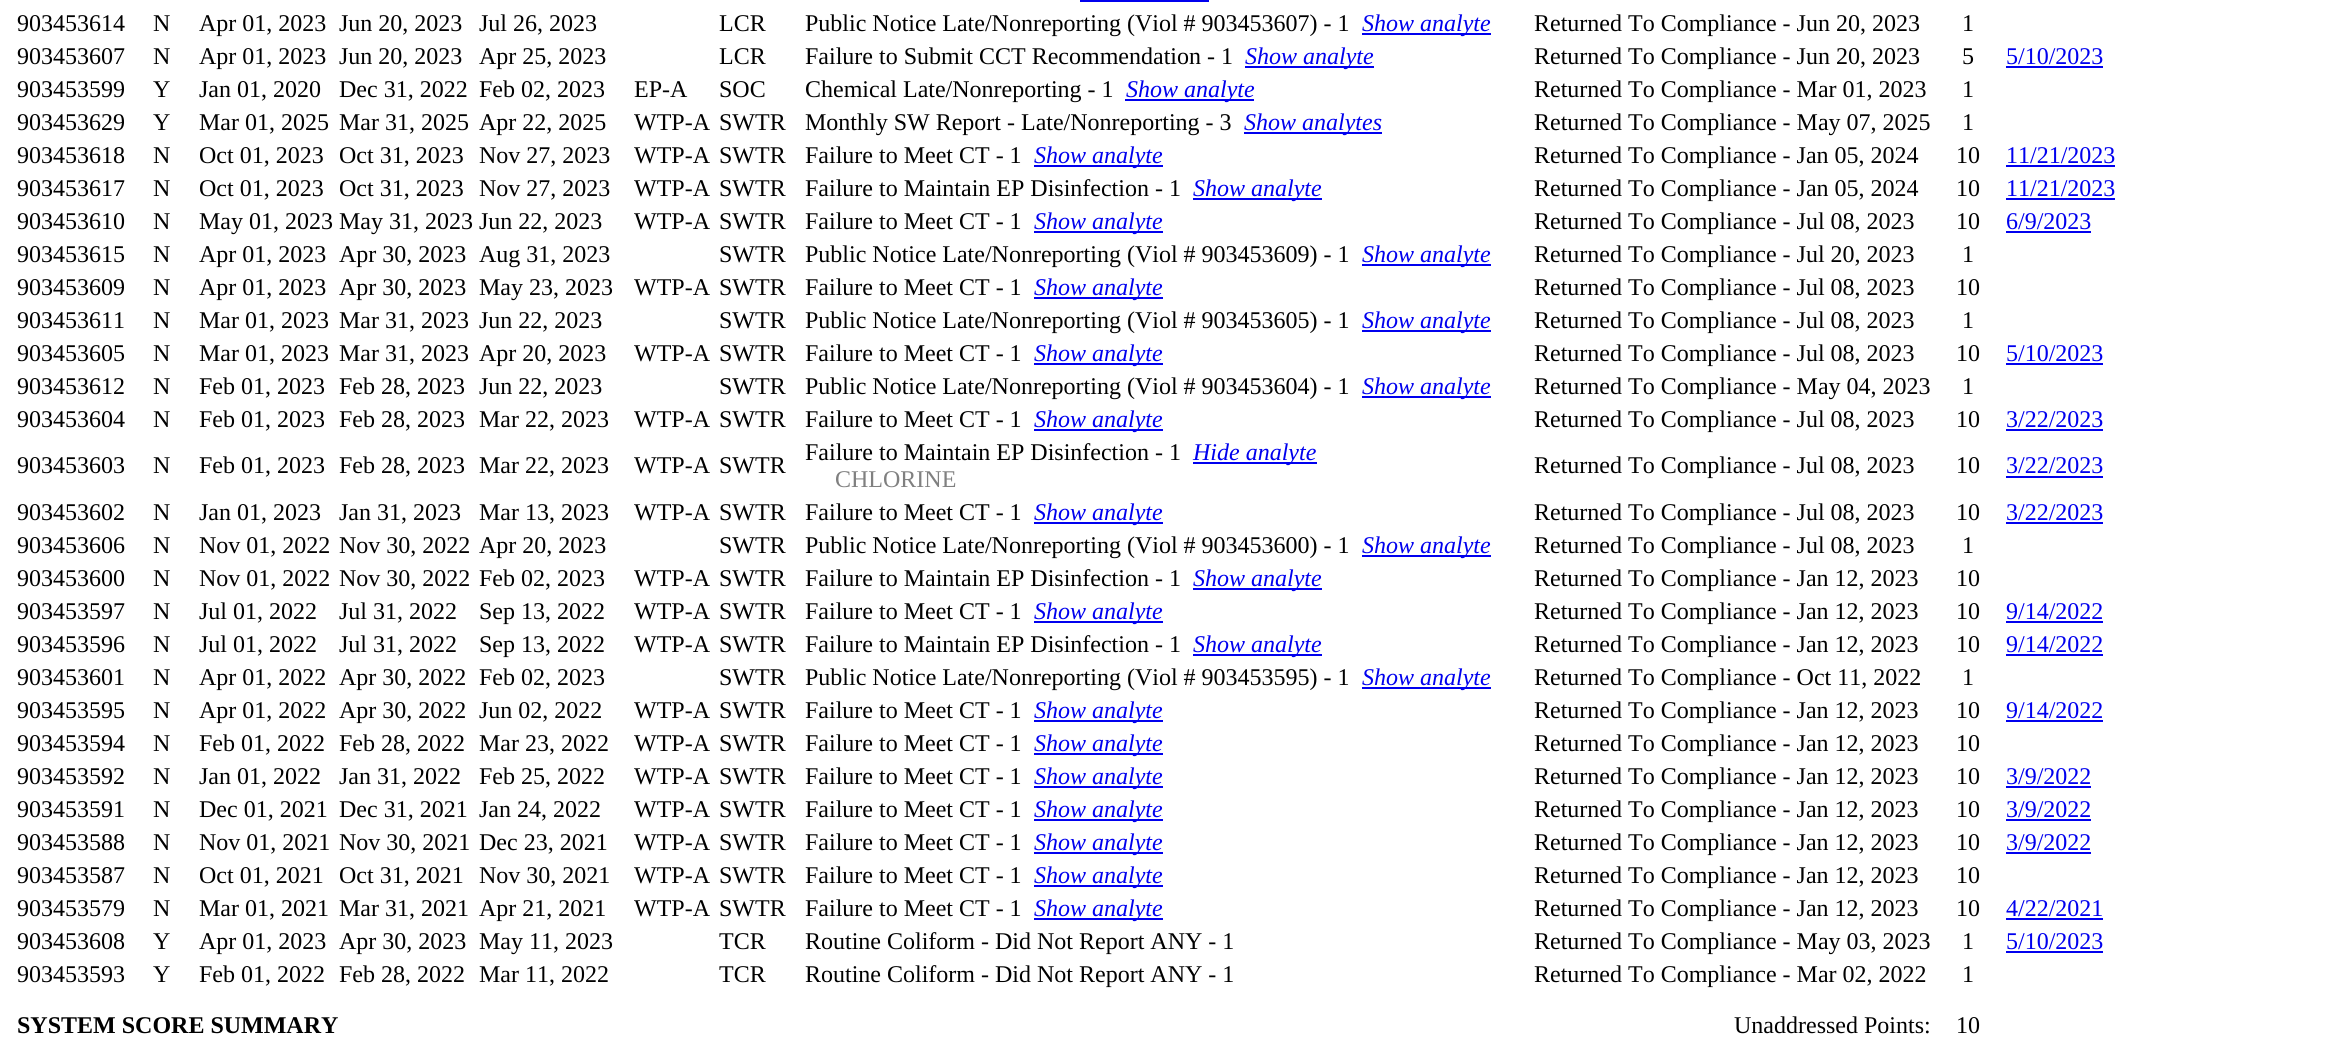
#include <cairo/cairo.h>
#include <math.h>
#include <stddef.h>

static cairo_t *cr;

static void use_color(int r, int g, int b) {
  cairo_set_source_rgb(cr, r / 255.0, g / 255.0, b / 255.0);
}

static void text(double x, double y, const char *s, const char *family, double size, int italic, int bold, int r, int g, int b) {
  cairo_select_font_face(cr, family, italic ? CAIRO_FONT_SLANT_ITALIC : CAIRO_FONT_SLANT_NORMAL,
    bold ? CAIRO_FONT_WEIGHT_BOLD : CAIRO_FONT_WEIGHT_NORMAL);
  cairo_set_font_size(cr, size);
  use_color(r, g, b);
  cairo_move_to(cr, x, y);
  cairo_show_text(cr, s);
}

static void box(double x, double y, double w, double h, int r, int g, int b) {
  use_color(r, g, b);
  cairo_rectangle(cr, x, y, w, h);
  cairo_fill(cr);
}

static void draw(void) {
  use_color(255, 255, 255);
  cairo_paint(cr);
  box(1080, 0, 129, 2, 0, 0, 238);
  box(1362, 33, 129, 2, 0, 0, 238);
  box(1245, 66, 129, 2, 0, 0, 238);
  box(2006, 66, 97, 2, 0, 0, 238);
  box(1125, 99, 129, 2, 0, 0, 238);
  box(1244, 132, 138, 2, 0, 0, 238);
  box(1034, 165, 129, 2, 0, 0, 238);
  box(2006, 165, 109, 2, 0, 0, 238);
  box(1193, 198, 129, 2, 0, 0, 238);
  box(2006, 198, 109, 2, 0, 0, 238);
  box(1034, 231, 129, 2, 0, 0, 238);
  box(2006, 231, 85, 2, 0, 0, 238);
  box(1362, 264, 129, 2, 0, 0, 238);
  box(1034, 297, 129, 2, 0, 0, 238);
  box(1362, 330, 129, 2, 0, 0, 238);
  box(1034, 363, 129, 2, 0, 0, 238);
  box(2006, 363, 97, 2, 0, 0, 238);
  box(1362, 396, 129, 2, 0, 0, 238);
  box(1034, 429, 129, 2, 0, 0, 238);
  box(2006, 429, 97, 2, 0, 0, 238);
  box(1193, 462, 124, 2, 0, 0, 238);
  box(2006, 476, 97, 2, 0, 0, 238);
  box(1034, 522, 129, 2, 0, 0, 238);
  box(2006, 522, 97, 2, 0, 0, 238);
  box(1362, 555, 129, 2, 0, 0, 238);
  box(1193, 588, 129, 2, 0, 0, 238);
  box(1034, 621, 129, 2, 0, 0, 238);
  box(2006, 621, 97, 2, 0, 0, 238);
  box(1193, 654, 129, 2, 0, 0, 238);
  box(2006, 654, 97, 2, 0, 0, 238);
  box(1362, 687, 129, 2, 0, 0, 238);
  box(1034, 720, 129, 2, 0, 0, 238);
  box(2006, 720, 97, 2, 0, 0, 238);
  box(1034, 753, 129, 2, 0, 0, 238);
  box(1034, 786, 129, 2, 0, 0, 238);
  box(2006, 786, 85, 2, 0, 0, 238);
  box(1034, 819, 129, 2, 0, 0, 238);
  box(2006, 819, 85, 2, 0, 0, 238);
  box(1034, 852, 129, 2, 0, 0, 238);
  box(2006, 852, 85, 2, 0, 0, 238);
  box(1034, 885, 129, 2, 0, 0, 238);
  box(1034, 918, 129, 2, 0, 0, 238);
  box(2006, 918, 97, 2, 0, 0, 238);
  box(2006, 951, 97, 2, 0, 0, 238);
  text(17, 31, "903453614", "Liberation Serif", 24, 0, 0, 0, 0, 0);
  text(153, 31, "N", "Liberation Serif", 24, 0, 0, 0, 0, 0);
  text(199, 31, "Apr 01, 2023", "Liberation Serif", 24, 0, 0, 0, 0, 0);
  text(339, 31, "Jun 20, 2023", "Liberation Serif", 24, 0, 0, 0, 0, 0);
  text(479, 31, "Jul 26, 2023", "Liberation Serif", 24, 0, 0, 0, 0, 0);
  text(719, 31, "LCR", "Liberation Serif", 24, 0, 0, 0, 0, 0);
  text(805, 31, "Public Notice Late/Nonreporting (Viol # 903453607) - 1", "Liberation Serif", 24, 0, 0, 0, 0, 0);
  text(1362, 31, "Show analyte", "Liberation Serif", 24, 1, 0, 0, 0, 238);
  text(1534, 31, "Returned To Compliance - Jun 20, 2023", "Liberation Serif", 24, 0, 0, 0, 0, 0);
  text(1962, 31, "1", "Liberation Serif", 24, 0, 0, 0, 0, 0);
  text(17, 64, "903453607", "Liberation Serif", 24, 0, 0, 0, 0, 0);
  text(153, 64, "N", "Liberation Serif", 24, 0, 0, 0, 0, 0);
  text(199, 64, "Apr 01, 2023", "Liberation Serif", 24, 0, 0, 0, 0, 0);
  text(339, 64, "Jun 20, 2023", "Liberation Serif", 24, 0, 0, 0, 0, 0);
  text(479, 64, "Apr 25, 2023", "Liberation Serif", 24, 0, 0, 0, 0, 0);
  text(719, 64, "LCR", "Liberation Serif", 24, 0, 0, 0, 0, 0);
  text(805, 64, "Failure to Submit CCT Recommendation - 1", "Liberation Serif", 24, 0, 0, 0, 0, 0);
  text(1245, 64, "Show analyte", "Liberation Serif", 24, 1, 0, 0, 0, 238);
  text(1534, 64, "Returned To Compliance - Jun 20, 2023", "Liberation Serif", 24, 0, 0, 0, 0, 0);
  text(1962, 64, "5", "Liberation Serif", 24, 0, 0, 0, 0, 0);
  text(2006, 64, "5/10/2023", "Liberation Serif", 24, 0, 0, 0, 0, 238);
  text(17, 97, "903453599", "Liberation Serif", 24, 0, 0, 0, 0, 0);
  text(153, 97, "Y", "Liberation Serif", 24, 0, 0, 0, 0, 0);
  text(199, 97, "Jan 01, 2020", "Liberation Serif", 24, 0, 0, 0, 0, 0);
  text(339, 97, "Dec 31, 2022", "Liberation Serif", 24, 0, 0, 0, 0, 0);
  text(479, 97, "Feb 02, 2023", "Liberation Serif", 24, 0, 0, 0, 0, 0);
  text(634, 97, "EP-A", "Liberation Serif", 24, 0, 0, 0, 0, 0);
  text(719, 97, "SOC", "Liberation Serif", 24, 0, 0, 0, 0, 0);
  text(805, 97, "Chemical Late/Nonreporting - 1", "Liberation Serif", 24, 0, 0, 0, 0, 0);
  text(1126, 97, "Show analyte", "Liberation Serif", 24, 1, 0, 0, 0, 238);
  text(1534, 97, "Returned To Compliance - Mar 01, 2023", "Liberation Serif", 24, 0, 0, 0, 0, 0);
  text(1962, 97, "1", "Liberation Serif", 24, 0, 0, 0, 0, 0);
  text(17, 130, "903453629", "Liberation Serif", 24, 0, 0, 0, 0, 0);
  text(153, 130, "Y", "Liberation Serif", 24, 0, 0, 0, 0, 0);
  text(199, 130, "Mar 01, 2025", "Liberation Serif", 24, 0, 0, 0, 0, 0);
  text(339, 130, "Mar 31, 2025", "Liberation Serif", 24, 0, 0, 0, 0, 0);
  text(479, 130, "Apr 22, 2025", "Liberation Serif", 24, 0, 0, 0, 0, 0);
  text(634, 130, "WTP-A", "Liberation Serif", 24, 0, 0, 0, 0, 0);
  text(719, 130, "SWTR", "Liberation Serif", 24, 0, 0, 0, 0, 0);
  text(805, 130, "Monthly SW Report - Late/Nonreporting - 3", "Liberation Serif", 24, 0, 0, 0, 0, 0);
  text(1244, 130, "Show analytes", "Liberation Serif", 24, 1, 0, 0, 0, 238);
  text(1534, 130, "Returned To Compliance - May 07, 2025", "Liberation Serif", 24, 0, 0, 0, 0, 0);
  text(1962, 130, "1", "Liberation Serif", 24, 0, 0, 0, 0, 0);
  text(17, 163, "903453618", "Liberation Serif", 24, 0, 0, 0, 0, 0);
  text(153, 163, "N", "Liberation Serif", 24, 0, 0, 0, 0, 0);
  text(199, 163, "Oct 01, 2023", "Liberation Serif", 24, 0, 0, 0, 0, 0);
  text(339, 163, "Oct 31, 2023", "Liberation Serif", 24, 0, 0, 0, 0, 0);
  text(479, 163, "Nov 27, 2023", "Liberation Serif", 24, 0, 0, 0, 0, 0);
  text(634, 163, "WTP-A", "Liberation Serif", 24, 0, 0, 0, 0, 0);
  text(719, 163, "SWTR", "Liberation Serif", 24, 0, 0, 0, 0, 0);
  text(805, 163, "Failure to Meet CT - 1", "Liberation Serif", 24, 0, 0, 0, 0, 0);
  text(1034, 163, "Show analyte", "Liberation Serif", 24, 1, 0, 0, 0, 238);
  text(1534, 163, "Returned To Compliance - Jan 05, 2024", "Liberation Serif", 24, 0, 0, 0, 0, 0);
  text(1956, 163, "10", "Liberation Serif", 24, 0, 0, 0, 0, 0);
  text(2006, 163, "11/21/2023", "Liberation Serif", 24, 0, 0, 0, 0, 238);
  text(17, 196, "903453617", "Liberation Serif", 24, 0, 0, 0, 0, 0);
  text(153, 196, "N", "Liberation Serif", 24, 0, 0, 0, 0, 0);
  text(199, 196, "Oct 01, 2023", "Liberation Serif", 24, 0, 0, 0, 0, 0);
  text(339, 196, "Oct 31, 2023", "Liberation Serif", 24, 0, 0, 0, 0, 0);
  text(479, 196, "Nov 27, 2023", "Liberation Serif", 24, 0, 0, 0, 0, 0);
  text(634, 196, "WTP-A", "Liberation Serif", 24, 0, 0, 0, 0, 0);
  text(719, 196, "SWTR", "Liberation Serif", 24, 0, 0, 0, 0, 0);
  text(805, 196, "Failure to Maintain EP Disinfection - 1", "Liberation Serif", 24, 0, 0, 0, 0, 0);
  text(1193, 196, "Show analyte", "Liberation Serif", 24, 1, 0, 0, 0, 238);
  text(1534, 196, "Returned To Compliance - Jan 05, 2024", "Liberation Serif", 24, 0, 0, 0, 0, 0);
  text(1956, 196, "10", "Liberation Serif", 24, 0, 0, 0, 0, 0);
  text(2006, 196, "11/21/2023", "Liberation Serif", 24, 0, 0, 0, 0, 238);
  text(17, 229, "903453610", "Liberation Serif", 24, 0, 0, 0, 0, 0);
  text(153, 229, "N", "Liberation Serif", 24, 0, 0, 0, 0, 0);
  text(199, 229, "May 01, 2023 May 31, 2023 Jun 22, 2023", "Liberation Serif", 24, 0, 0, 0, 0, 0);
  text(634, 229, "WTP-A", "Liberation Serif", 24, 0, 0, 0, 0, 0);
  text(719, 229, "SWTR", "Liberation Serif", 24, 0, 0, 0, 0, 0);
  text(805, 229, "Failure to Meet CT - 1", "Liberation Serif", 24, 0, 0, 0, 0, 0);
  text(1034, 229, "Show analyte", "Liberation Serif", 24, 1, 0, 0, 0, 238);
  text(1534, 229, "Returned To Compliance - Jul 08, 2023", "Liberation Serif", 24, 0, 0, 0, 0, 0);
  text(1956, 229, "10", "Liberation Serif", 24, 0, 0, 0, 0, 0);
  text(2006, 229, "6/9/2023", "Liberation Serif", 24, 0, 0, 0, 0, 238);
  text(17, 262, "903453615", "Liberation Serif", 24, 0, 0, 0, 0, 0);
  text(153, 262, "N", "Liberation Serif", 24, 0, 0, 0, 0, 0);
  text(199, 262, "Apr 01, 2023", "Liberation Serif", 24, 0, 0, 0, 0, 0);
  text(339, 262, "Apr 30, 2023", "Liberation Serif", 24, 0, 0, 0, 0, 0);
  text(479, 262, "Aug 31, 2023", "Liberation Serif", 24, 0, 0, 0, 0, 0);
  text(719, 262, "SWTR", "Liberation Serif", 24, 0, 0, 0, 0, 0);
  text(805, 262, "Public Notice Late/Nonreporting (Viol # 903453609) - 1", "Liberation Serif", 24, 0, 0, 0, 0, 0);
  text(1362, 262, "Show analyte", "Liberation Serif", 24, 1, 0, 0, 0, 238);
  text(1534, 262, "Returned To Compliance - Jul 20, 2023", "Liberation Serif", 24, 0, 0, 0, 0, 0);
  text(1962, 262, "1", "Liberation Serif", 24, 0, 0, 0, 0, 0);
  text(17, 295, "903453609", "Liberation Serif", 24, 0, 0, 0, 0, 0);
  text(153, 295, "N", "Liberation Serif", 24, 0, 0, 0, 0, 0);
  text(199, 295, "Apr 01, 2023", "Liberation Serif", 24, 0, 0, 0, 0, 0);
  text(339, 295, "Apr 30, 2023", "Liberation Serif", 24, 0, 0, 0, 0, 0);
  text(479, 295, "May 23, 2023", "Liberation Serif", 24, 0, 0, 0, 0, 0);
  text(634, 295, "WTP-A", "Liberation Serif", 24, 0, 0, 0, 0, 0);
  text(719, 295, "SWTR", "Liberation Serif", 24, 0, 0, 0, 0, 0);
  text(805, 295, "Failure to Meet CT - 1", "Liberation Serif", 24, 0, 0, 0, 0, 0);
  text(1034, 295, "Show analyte", "Liberation Serif", 24, 1, 0, 0, 0, 238);
  text(1534, 295, "Returned To Compliance - Jul 08, 2023", "Liberation Serif", 24, 0, 0, 0, 0, 0);
  text(1956, 295, "10", "Liberation Serif", 24, 0, 0, 0, 0, 0);
  text(17, 328, "903453611", "Liberation Serif", 24, 0, 0, 0, 0, 0);
  text(153, 328, "N", "Liberation Serif", 24, 0, 0, 0, 0, 0);
  text(199, 328, "Mar 01, 2023", "Liberation Serif", 24, 0, 0, 0, 0, 0);
  text(339, 328, "Mar 31, 2023", "Liberation Serif", 24, 0, 0, 0, 0, 0);
  text(479, 328, "Jun 22, 2023", "Liberation Serif", 24, 0, 0, 0, 0, 0);
  text(719, 328, "SWTR", "Liberation Serif", 24, 0, 0, 0, 0, 0);
  text(805, 328, "Public Notice Late/Nonreporting (Viol # 903453605) - 1", "Liberation Serif", 24, 0, 0, 0, 0, 0);
  text(1362, 328, "Show analyte", "Liberation Serif", 24, 1, 0, 0, 0, 238);
  text(1534, 328, "Returned To Compliance - Jul 08, 2023", "Liberation Serif", 24, 0, 0, 0, 0, 0);
  text(1962, 328, "1", "Liberation Serif", 24, 0, 0, 0, 0, 0);
  text(17, 361, "903453605", "Liberation Serif", 24, 0, 0, 0, 0, 0);
  text(153, 361, "N", "Liberation Serif", 24, 0, 0, 0, 0, 0);
  text(199, 361, "Mar 01, 2023", "Liberation Serif", 24, 0, 0, 0, 0, 0);
  text(339, 361, "Mar 31, 2023", "Liberation Serif", 24, 0, 0, 0, 0, 0);
  text(479, 361, "Apr 20, 2023", "Liberation Serif", 24, 0, 0, 0, 0, 0);
  text(634, 361, "WTP-A", "Liberation Serif", 24, 0, 0, 0, 0, 0);
  text(719, 361, "SWTR", "Liberation Serif", 24, 0, 0, 0, 0, 0);
  text(805, 361, "Failure to Meet CT - 1", "Liberation Serif", 24, 0, 0, 0, 0, 0);
  text(1034, 361, "Show analyte", "Liberation Serif", 24, 1, 0, 0, 0, 238);
  text(1534, 361, "Returned To Compliance - Jul 08, 2023", "Liberation Serif", 24, 0, 0, 0, 0, 0);
  text(1956, 361, "10", "Liberation Serif", 24, 0, 0, 0, 0, 0);
  text(2006, 361, "5/10/2023", "Liberation Serif", 24, 0, 0, 0, 0, 238);
  text(17, 394, "903453612", "Liberation Serif", 24, 0, 0, 0, 0, 0);
  text(153, 394, "N", "Liberation Serif", 24, 0, 0, 0, 0, 0);
  text(199, 394, "Feb 01, 2023", "Liberation Serif", 24, 0, 0, 0, 0, 0);
  text(339, 394, "Feb 28, 2023", "Liberation Serif", 24, 0, 0, 0, 0, 0);
  text(479, 394, "Jun 22, 2023", "Liberation Serif", 24, 0, 0, 0, 0, 0);
  text(719, 394, "SWTR", "Liberation Serif", 24, 0, 0, 0, 0, 0);
  text(805, 394, "Public Notice Late/Nonreporting (Viol # 903453604) - 1", "Liberation Serif", 24, 0, 0, 0, 0, 0);
  text(1362, 394, "Show analyte", "Liberation Serif", 24, 1, 0, 0, 0, 238);
  text(1534, 394, "Returned To Compliance - May 04, 2023", "Liberation Serif", 24, 0, 0, 0, 0, 0);
  text(1962, 394, "1", "Liberation Serif", 24, 0, 0, 0, 0, 0);
  text(17, 427, "903453604", "Liberation Serif", 24, 0, 0, 0, 0, 0);
  text(153, 427, "N", "Liberation Serif", 24, 0, 0, 0, 0, 0);
  text(199, 427, "Feb 01, 2023", "Liberation Serif", 24, 0, 0, 0, 0, 0);
  text(339, 427, "Feb 28, 2023", "Liberation Serif", 24, 0, 0, 0, 0, 0);
  text(479, 427, "Mar 22, 2023", "Liberation Serif", 24, 0, 0, 0, 0, 0);
  text(634, 427, "WTP-A", "Liberation Serif", 24, 0, 0, 0, 0, 0);
  text(719, 427, "SWTR", "Liberation Serif", 24, 0, 0, 0, 0, 0);
  text(805, 427, "Failure to Meet CT - 1", "Liberation Serif", 24, 0, 0, 0, 0, 0);
  text(1034, 427, "Show analyte", "Liberation Serif", 24, 1, 0, 0, 0, 238);
  text(1534, 427, "Returned To Compliance - Jul 08, 2023", "Liberation Serif", 24, 0, 0, 0, 0, 0);
  text(1956, 427, "10", "Liberation Serif", 24, 0, 0, 0, 0, 0);
  text(2006, 427, "3/22/2023", "Liberation Serif", 24, 0, 0, 0, 0, 238);
  text(17, 473, "903453603", "Liberation Serif", 24, 0, 0, 0, 0, 0);
  text(153, 473, "N", "Liberation Serif", 24, 0, 0, 0, 0, 0);
  text(199, 473, "Feb 01, 2023", "Liberation Serif", 24, 0, 0, 0, 0, 0);
  text(339, 473, "Feb 28, 2023", "Liberation Serif", 24, 0, 0, 0, 0, 0);
  text(479, 473, "Mar 22, 2023", "Liberation Serif", 24, 0, 0, 0, 0, 0);
  text(634, 473, "WTP-A", "Liberation Serif", 24, 0, 0, 0, 0, 0);
  text(719, 473, "SWTR", "Liberation Serif", 24, 0, 0, 0, 0, 0);
  text(805, 460, "Failure to Maintain EP Disinfection - 1", "Liberation Serif", 24, 0, 0, 0, 0, 0);
  text(1193, 460, "Hide analyte", "Liberation Serif", 24, 1, 0, 0, 0, 238);
  text(835, 487, "CHLORINE", "Liberation Serif", 24, 0, 0, 128, 128, 128);
  text(1534, 473, "Returned To Compliance - Jul 08, 2023", "Liberation Serif", 24, 0, 0, 0, 0, 0);
  text(1956, 473, "10", "Liberation Serif", 24, 0, 0, 0, 0, 0);
  text(2006, 473, "3/22/2023", "Liberation Serif", 24, 0, 0, 0, 0, 238);
  text(17, 520, "903453602", "Liberation Serif", 24, 0, 0, 0, 0, 0);
  text(153, 520, "N", "Liberation Serif", 24, 0, 0, 0, 0, 0);
  text(199, 520, "Jan 01, 2023", "Liberation Serif", 24, 0, 0, 0, 0, 0);
  text(339, 520, "Jan 31, 2023", "Liberation Serif", 24, 0, 0, 0, 0, 0);
  text(479, 520, "Mar 13, 2023", "Liberation Serif", 24, 0, 0, 0, 0, 0);
  text(634, 520, "WTP-A", "Liberation Serif", 24, 0, 0, 0, 0, 0);
  text(719, 520, "SWTR", "Liberation Serif", 24, 0, 0, 0, 0, 0);
  text(805, 520, "Failure to Meet CT - 1", "Liberation Serif", 24, 0, 0, 0, 0, 0);
  text(1034, 520, "Show analyte", "Liberation Serif", 24, 1, 0, 0, 0, 238);
  text(1534, 520, "Returned To Compliance - Jul 08, 2023", "Liberation Serif", 24, 0, 0, 0, 0, 0);
  text(1956, 520, "10", "Liberation Serif", 24, 0, 0, 0, 0, 0);
  text(2006, 520, "3/22/2023", "Liberation Serif", 24, 0, 0, 0, 0, 238);
  text(17, 553, "903453606", "Liberation Serif", 24, 0, 0, 0, 0, 0);
  text(153, 553, "N", "Liberation Serif", 24, 0, 0, 0, 0, 0);
  text(199, 553, "Nov 01, 2022", "Liberation Serif", 24, 0, 0, 0, 0, 0);
  text(339, 553, "Nov 30, 2022", "Liberation Serif", 24, 0, 0, 0, 0, 0);
  text(479, 553, "Apr 20, 2023", "Liberation Serif", 24, 0, 0, 0, 0, 0);
  text(719, 553, "SWTR", "Liberation Serif", 24, 0, 0, 0, 0, 0);
  text(805, 553, "Public Notice Late/Nonreporting (Viol # 903453600) - 1", "Liberation Serif", 24, 0, 0, 0, 0, 0);
  text(1362, 553, "Show analyte", "Liberation Serif", 24, 1, 0, 0, 0, 238);
  text(1534, 553, "Returned To Compliance - Jul 08, 2023", "Liberation Serif", 24, 0, 0, 0, 0, 0);
  text(1962, 553, "1", "Liberation Serif", 24, 0, 0, 0, 0, 0);
  text(17, 586, "903453600", "Liberation Serif", 24, 0, 0, 0, 0, 0);
  text(153, 586, "N", "Liberation Serif", 24, 0, 0, 0, 0, 0);
  text(199, 586, "Nov 01, 2022", "Liberation Serif", 24, 0, 0, 0, 0, 0);
  text(339, 586, "Nov 30, 2022", "Liberation Serif", 24, 0, 0, 0, 0, 0);
  text(479, 586, "Feb 02, 2023", "Liberation Serif", 24, 0, 0, 0, 0, 0);
  text(634, 586, "WTP-A", "Liberation Serif", 24, 0, 0, 0, 0, 0);
  text(719, 586, "SWTR", "Liberation Serif", 24, 0, 0, 0, 0, 0);
  text(805, 586, "Failure to Maintain EP Disinfection - 1", "Liberation Serif", 24, 0, 0, 0, 0, 0);
  text(1193, 586, "Show analyte", "Liberation Serif", 24, 1, 0, 0, 0, 238);
  text(1534, 586, "Returned To Compliance - Jan 12, 2023", "Liberation Serif", 24, 0, 0, 0, 0, 0);
  text(1956, 586, "10", "Liberation Serif", 24, 0, 0, 0, 0, 0);
  text(17, 619, "903453597", "Liberation Serif", 24, 0, 0, 0, 0, 0);
  text(153, 619, "N", "Liberation Serif", 24, 0, 0, 0, 0, 0);
  text(199, 619, "Jul 01, 2022", "Liberation Serif", 24, 0, 0, 0, 0, 0);
  text(339, 619, "Jul 31, 2022", "Liberation Serif", 24, 0, 0, 0, 0, 0);
  text(479, 619, "Sep 13, 2022", "Liberation Serif", 24, 0, 0, 0, 0, 0);
  text(634, 619, "WTP-A", "Liberation Serif", 24, 0, 0, 0, 0, 0);
  text(719, 619, "SWTR", "Liberation Serif", 24, 0, 0, 0, 0, 0);
  text(805, 619, "Failure to Meet CT - 1", "Liberation Serif", 24, 0, 0, 0, 0, 0);
  text(1034, 619, "Show analyte", "Liberation Serif", 24, 1, 0, 0, 0, 238);
  text(1534, 619, "Returned To Compliance - Jan 12, 2023", "Liberation Serif", 24, 0, 0, 0, 0, 0);
  text(1956, 619, "10", "Liberation Serif", 24, 0, 0, 0, 0, 0);
  text(2006, 619, "9/14/2022", "Liberation Serif", 24, 0, 0, 0, 0, 238);
  text(17, 652, "903453596", "Liberation Serif", 24, 0, 0, 0, 0, 0);
  text(153, 652, "N", "Liberation Serif", 24, 0, 0, 0, 0, 0);
  text(199, 652, "Jul 01, 2022", "Liberation Serif", 24, 0, 0, 0, 0, 0);
  text(339, 652, "Jul 31, 2022", "Liberation Serif", 24, 0, 0, 0, 0, 0);
  text(479, 652, "Sep 13, 2022", "Liberation Serif", 24, 0, 0, 0, 0, 0);
  text(634, 652, "WTP-A", "Liberation Serif", 24, 0, 0, 0, 0, 0);
  text(719, 652, "SWTR", "Liberation Serif", 24, 0, 0, 0, 0, 0);
  text(805, 652, "Failure to Maintain EP Disinfection - 1", "Liberation Serif", 24, 0, 0, 0, 0, 0);
  text(1193, 652, "Show analyte", "Liberation Serif", 24, 1, 0, 0, 0, 238);
  text(1534, 652, "Returned To Compliance - Jan 12, 2023", "Liberation Serif", 24, 0, 0, 0, 0, 0);
  text(1956, 652, "10", "Liberation Serif", 24, 0, 0, 0, 0, 0);
  text(2006, 652, "9/14/2022", "Liberation Serif", 24, 0, 0, 0, 0, 238);
  text(17, 685, "903453601", "Liberation Serif", 24, 0, 0, 0, 0, 0);
  text(153, 685, "N", "Liberation Serif", 24, 0, 0, 0, 0, 0);
  text(199, 685, "Apr 01, 2022", "Liberation Serif", 24, 0, 0, 0, 0, 0);
  text(339, 685, "Apr 30, 2022", "Liberation Serif", 24, 0, 0, 0, 0, 0);
  text(479, 685, "Feb 02, 2023", "Liberation Serif", 24, 0, 0, 0, 0, 0);
  text(719, 685, "SWTR", "Liberation Serif", 24, 0, 0, 0, 0, 0);
  text(805, 685, "Public Notice Late/Nonreporting (Viol # 903453595) - 1", "Liberation Serif", 24, 0, 0, 0, 0, 0);
  text(1362, 685, "Show analyte", "Liberation Serif", 24, 1, 0, 0, 0, 238);
  text(1534, 685, "Returned To Compliance - Oct 11, 2022", "Liberation Serif", 24, 0, 0, 0, 0, 0);
  text(1962, 685, "1", "Liberation Serif", 24, 0, 0, 0, 0, 0);
  text(17, 718, "903453595", "Liberation Serif", 24, 0, 0, 0, 0, 0);
  text(153, 718, "N", "Liberation Serif", 24, 0, 0, 0, 0, 0);
  text(199, 718, "Apr 01, 2022", "Liberation Serif", 24, 0, 0, 0, 0, 0);
  text(339, 718, "Apr 30, 2022", "Liberation Serif", 24, 0, 0, 0, 0, 0);
  text(479, 718, "Jun 02, 2022", "Liberation Serif", 24, 0, 0, 0, 0, 0);
  text(634, 718, "WTP-A", "Liberation Serif", 24, 0, 0, 0, 0, 0);
  text(719, 718, "SWTR", "Liberation Serif", 24, 0, 0, 0, 0, 0);
  text(805, 718, "Failure to Meet CT - 1", "Liberation Serif", 24, 0, 0, 0, 0, 0);
  text(1034, 718, "Show analyte", "Liberation Serif", 24, 1, 0, 0, 0, 238);
  text(1534, 718, "Returned To Compliance - Jan 12, 2023", "Liberation Serif", 24, 0, 0, 0, 0, 0);
  text(1956, 718, "10", "Liberation Serif", 24, 0, 0, 0, 0, 0);
  text(2006, 718, "9/14/2022", "Liberation Serif", 24, 0, 0, 0, 0, 238);
  text(17, 751, "903453594", "Liberation Serif", 24, 0, 0, 0, 0, 0);
  text(153, 751, "N", "Liberation Serif", 24, 0, 0, 0, 0, 0);
  text(199, 751, "Feb 01, 2022", "Liberation Serif", 24, 0, 0, 0, 0, 0);
  text(339, 751, "Feb 28, 2022", "Liberation Serif", 24, 0, 0, 0, 0, 0);
  text(479, 751, "Mar 23, 2022", "Liberation Serif", 24, 0, 0, 0, 0, 0);
  text(634, 751, "WTP-A", "Liberation Serif", 24, 0, 0, 0, 0, 0);
  text(719, 751, "SWTR", "Liberation Serif", 24, 0, 0, 0, 0, 0);
  text(805, 751, "Failure to Meet CT - 1", "Liberation Serif", 24, 0, 0, 0, 0, 0);
  text(1034, 751, "Show analyte", "Liberation Serif", 24, 1, 0, 0, 0, 238);
  text(1534, 751, "Returned To Compliance - Jan 12, 2023", "Liberation Serif", 24, 0, 0, 0, 0, 0);
  text(1956, 751, "10", "Liberation Serif", 24, 0, 0, 0, 0, 0);
  text(17, 784, "903453592", "Liberation Serif", 24, 0, 0, 0, 0, 0);
  text(153, 784, "N", "Liberation Serif", 24, 0, 0, 0, 0, 0);
  text(199, 784, "Jan 01, 2022", "Liberation Serif", 24, 0, 0, 0, 0, 0);
  text(339, 784, "Jan 31, 2022", "Liberation Serif", 24, 0, 0, 0, 0, 0);
  text(479, 784, "Feb 25, 2022", "Liberation Serif", 24, 0, 0, 0, 0, 0);
  text(634, 784, "WTP-A", "Liberation Serif", 24, 0, 0, 0, 0, 0);
  text(719, 784, "SWTR", "Liberation Serif", 24, 0, 0, 0, 0, 0);
  text(805, 784, "Failure to Meet CT - 1", "Liberation Serif", 24, 0, 0, 0, 0, 0);
  text(1034, 784, "Show analyte", "Liberation Serif", 24, 1, 0, 0, 0, 238);
  text(1534, 784, "Returned To Compliance - Jan 12, 2023", "Liberation Serif", 24, 0, 0, 0, 0, 0);
  text(1956, 784, "10", "Liberation Serif", 24, 0, 0, 0, 0, 0);
  text(2006, 784, "3/9/2022", "Liberation Serif", 24, 0, 0, 0, 0, 238);
  text(17, 817, "903453591", "Liberation Serif", 24, 0, 0, 0, 0, 0);
  text(153, 817, "N", "Liberation Serif", 24, 0, 0, 0, 0, 0);
  text(199, 817, "Dec 01, 2021", "Liberation Serif", 24, 0, 0, 0, 0, 0);
  text(339, 817, "Dec 31, 2021", "Liberation Serif", 24, 0, 0, 0, 0, 0);
  text(479, 817, "Jan 24, 2022", "Liberation Serif", 24, 0, 0, 0, 0, 0);
  text(634, 817, "WTP-A", "Liberation Serif", 24, 0, 0, 0, 0, 0);
  text(719, 817, "SWTR", "Liberation Serif", 24, 0, 0, 0, 0, 0);
  text(805, 817, "Failure to Meet CT - 1", "Liberation Serif", 24, 0, 0, 0, 0, 0);
  text(1034, 817, "Show analyte", "Liberation Serif", 24, 1, 0, 0, 0, 238);
  text(1534, 817, "Returned To Compliance - Jan 12, 2023", "Liberation Serif", 24, 0, 0, 0, 0, 0);
  text(1956, 817, "10", "Liberation Serif", 24, 0, 0, 0, 0, 0);
  text(2006, 817, "3/9/2022", "Liberation Serif", 24, 0, 0, 0, 0, 238);
  text(17, 850, "903453588", "Liberation Serif", 24, 0, 0, 0, 0, 0);
  text(153, 850, "N", "Liberation Serif", 24, 0, 0, 0, 0, 0);
  text(199, 850, "Nov 01, 2021", "Liberation Serif", 24, 0, 0, 0, 0, 0);
  text(339, 850, "Nov 30, 2021", "Liberation Serif", 24, 0, 0, 0, 0, 0);
  text(479, 850, "Dec 23, 2021", "Liberation Serif", 24, 0, 0, 0, 0, 0);
  text(634, 850, "WTP-A", "Liberation Serif", 24, 0, 0, 0, 0, 0);
  text(719, 850, "SWTR", "Liberation Serif", 24, 0, 0, 0, 0, 0);
  text(805, 850, "Failure to Meet CT - 1", "Liberation Serif", 24, 0, 0, 0, 0, 0);
  text(1034, 850, "Show analyte", "Liberation Serif", 24, 1, 0, 0, 0, 238);
  text(1534, 850, "Returned To Compliance - Jan 12, 2023", "Liberation Serif", 24, 0, 0, 0, 0, 0);
  text(1956, 850, "10", "Liberation Serif", 24, 0, 0, 0, 0, 0);
  text(2006, 850, "3/9/2022", "Liberation Serif", 24, 0, 0, 0, 0, 238);
  text(17, 883, "903453587", "Liberation Serif", 24, 0, 0, 0, 0, 0);
  text(153, 883, "N", "Liberation Serif", 24, 0, 0, 0, 0, 0);
  text(199, 883, "Oct 01, 2021", "Liberation Serif", 24, 0, 0, 0, 0, 0);
  text(339, 883, "Oct 31, 2021", "Liberation Serif", 24, 0, 0, 0, 0, 0);
  text(479, 883, "Nov 30, 2021", "Liberation Serif", 24, 0, 0, 0, 0, 0);
  text(634, 883, "WTP-A", "Liberation Serif", 24, 0, 0, 0, 0, 0);
  text(719, 883, "SWTR", "Liberation Serif", 24, 0, 0, 0, 0, 0);
  text(805, 883, "Failure to Meet CT - 1", "Liberation Serif", 24, 0, 0, 0, 0, 0);
  text(1034, 883, "Show analyte", "Liberation Serif", 24, 1, 0, 0, 0, 238);
  text(1534, 883, "Returned To Compliance - Jan 12, 2023", "Liberation Serif", 24, 0, 0, 0, 0, 0);
  text(1956, 883, "10", "Liberation Serif", 24, 0, 0, 0, 0, 0);
  text(17, 916, "903453579", "Liberation Serif", 24, 0, 0, 0, 0, 0);
  text(153, 916, "N", "Liberation Serif", 24, 0, 0, 0, 0, 0);
  text(199, 916, "Mar 01, 2021", "Liberation Serif", 24, 0, 0, 0, 0, 0);
  text(339, 916, "Mar 31, 2021", "Liberation Serif", 24, 0, 0, 0, 0, 0);
  text(479, 916, "Apr 21, 2021", "Liberation Serif", 24, 0, 0, 0, 0, 0);
  text(634, 916, "WTP-A", "Liberation Serif", 24, 0, 0, 0, 0, 0);
  text(719, 916, "SWTR", "Liberation Serif", 24, 0, 0, 0, 0, 0);
  text(805, 916, "Failure to Meet CT - 1", "Liberation Serif", 24, 0, 0, 0, 0, 0);
  text(1034, 916, "Show analyte", "Liberation Serif", 24, 1, 0, 0, 0, 238);
  text(1534, 916, "Returned To Compliance - Jan 12, 2023", "Liberation Serif", 24, 0, 0, 0, 0, 0);
  text(1956, 916, "10", "Liberation Serif", 24, 0, 0, 0, 0, 0);
  text(2006, 916, "4/22/2021", "Liberation Serif", 24, 0, 0, 0, 0, 238);
  text(17, 949, "903453608", "Liberation Serif", 24, 0, 0, 0, 0, 0);
  text(153, 949, "Y", "Liberation Serif", 24, 0, 0, 0, 0, 0);
  text(199, 949, "Apr 01, 2023", "Liberation Serif", 24, 0, 0, 0, 0, 0);
  text(339, 949, "Apr 30, 2023", "Liberation Serif", 24, 0, 0, 0, 0, 0);
  text(479, 949, "May 11, 2023", "Liberation Serif", 24, 0, 0, 0, 0, 0);
  text(719, 949, "TCR", "Liberation Serif", 24, 0, 0, 0, 0, 0);
  text(805, 949, "Routine Coliform - Did Not Report ANY - 1", "Liberation Serif", 24, 0, 0, 0, 0, 0);
  text(1534, 949, "Returned To Compliance - May 03, 2023", "Liberation Serif", 24, 0, 0, 0, 0, 0);
  text(1962, 949, "1", "Liberation Serif", 24, 0, 0, 0, 0, 0);
  text(2006, 949, "5/10/2023", "Liberation Serif", 24, 0, 0, 0, 0, 238);
  text(17, 982, "903453593", "Liberation Serif", 24, 0, 0, 0, 0, 0);
  text(153, 982, "Y", "Liberation Serif", 24, 0, 0, 0, 0, 0);
  text(199, 982, "Feb 01, 2022", "Liberation Serif", 24, 0, 0, 0, 0, 0);
  text(339, 982, "Feb 28, 2022", "Liberation Serif", 24, 0, 0, 0, 0, 0);
  text(479, 982, "Mar 11, 2022", "Liberation Serif", 24, 0, 0, 0, 0, 0);
  text(719, 982, "TCR", "Liberation Serif", 24, 0, 0, 0, 0, 0);
  text(805, 982, "Routine Coliform - Did Not Report ANY - 1", "Liberation Serif", 24, 0, 0, 0, 0, 0);
  text(1534, 982, "Returned To Compliance - Mar 02, 2022", "Liberation Serif", 24, 0, 0, 0, 0, 0);
  text(1962, 982, "1", "Liberation Serif", 24, 0, 0, 0, 0, 0);
  text(17, 1033, "SYSTEM SCORE SUMMARY", "Liberation Serif", 24, 0, 1, 0, 0, 0);
  text(1734, 1033, "Unaddressed Points:", "Liberation Serif", 24, 0, 0, 0, 0, 0);
  text(1956, 1033, "10", "Liberation Serif", 24, 0, 0, 0, 0, 0);
}

int main(void) {
  cairo_surface_t *surface = cairo_image_surface_create(CAIRO_FORMAT_RGB24, 2341, 1046);
  cr = cairo_create(surface);
  cairo_font_options_t *options = cairo_font_options_create();
  cairo_font_options_set_hint_metrics(options, CAIRO_HINT_METRICS_OFF);
  cairo_font_options_set_hint_style(options, CAIRO_HINT_STYLE_NONE);
  cairo_set_font_options(cr, options);
  cairo_set_miter_limit(cr, 4);
  draw();
  cairo_surface_write_to_png(surface, "out.png");
  cairo_font_options_destroy(options);
  cairo_destroy(cr);
  cairo_surface_destroy(surface);
  return 0;
}
